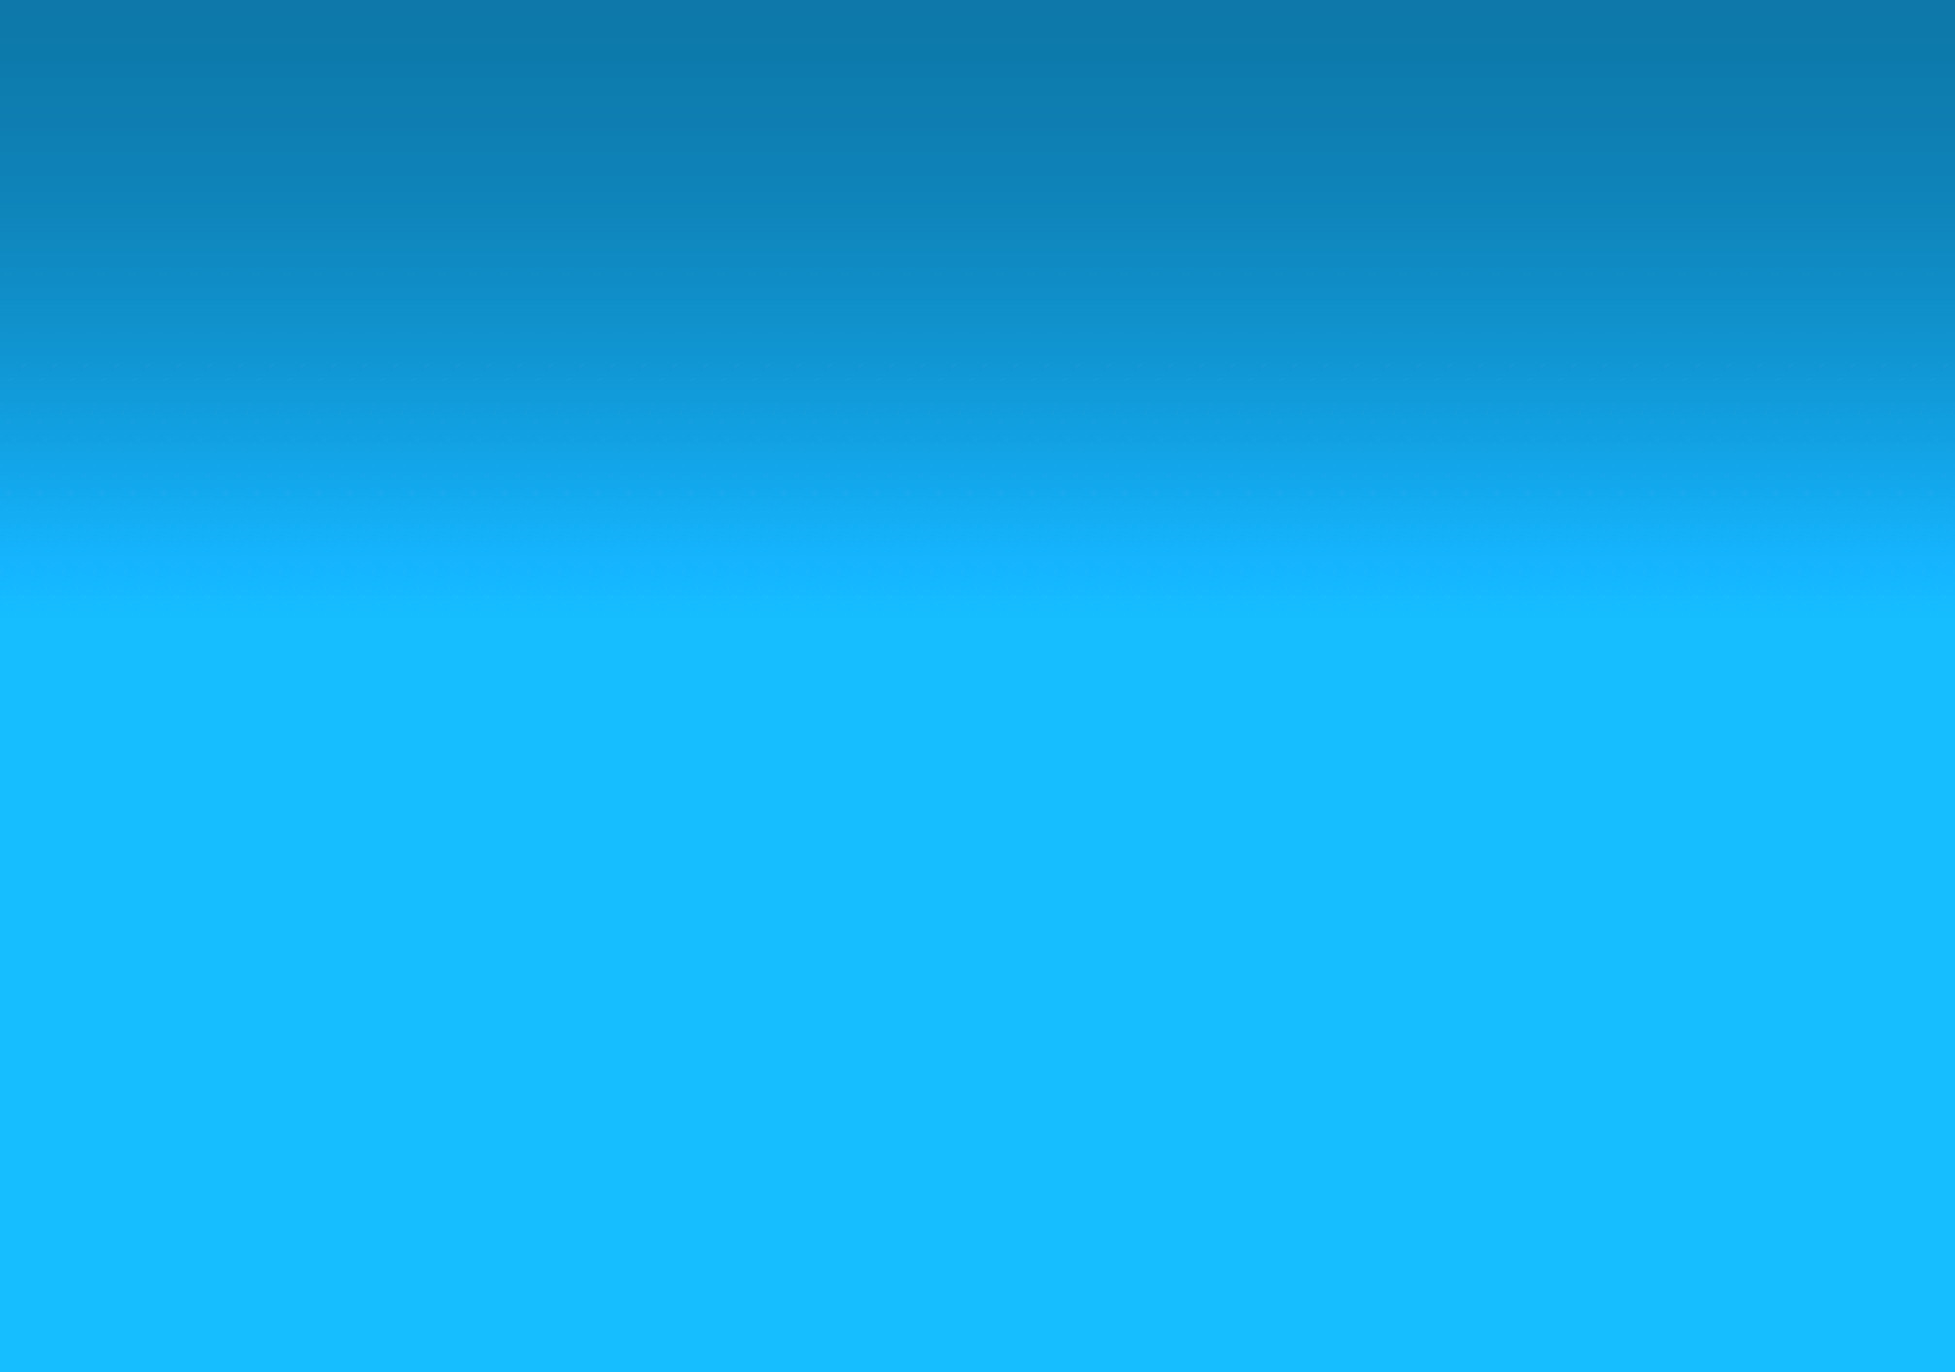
#include <cairo/cairo.h>
#include <math.h>
#include <stddef.h>

static cairo_t *cr;

static void use_color(int r, int g, int b) {
  cairo_set_source_rgb(cr, r / 255.0, g / 255.0, b / 255.0);
}

static void picture(const char *path, double x, double y, double w, double h) {
  cairo_surface_t *image = cairo_image_surface_create_from_png(path);
  cairo_save(cr);
  cairo_set_source_surface(cr, image, x, y);
  cairo_rectangle(cr, x, y, w, h);
  cairo_fill(cr);
  cairo_restore(cr);
  cairo_surface_destroy(image);
}

static void draw(void) {
  use_color(255, 255, 255);
  cairo_paint(cr);
  picture("img_01.png", 0, 0, 1955, 1372);
}

int main(void) {
  cairo_surface_t *surface = cairo_image_surface_create(CAIRO_FORMAT_RGB24, 1955, 1372);
  cr = cairo_create(surface);
  cairo_font_options_t *options = cairo_font_options_create();
  cairo_font_options_set_hint_metrics(options, CAIRO_HINT_METRICS_OFF);
  cairo_font_options_set_hint_style(options, CAIRO_HINT_STYLE_NONE);
  cairo_set_font_options(cr, options);
  cairo_set_miter_limit(cr, 4);
  draw();
  cairo_surface_write_to_png(surface, "out.png");
  cairo_font_options_destroy(options);
  cairo_destroy(cr);
  cairo_surface_destroy(surface);
  return 0;
}
